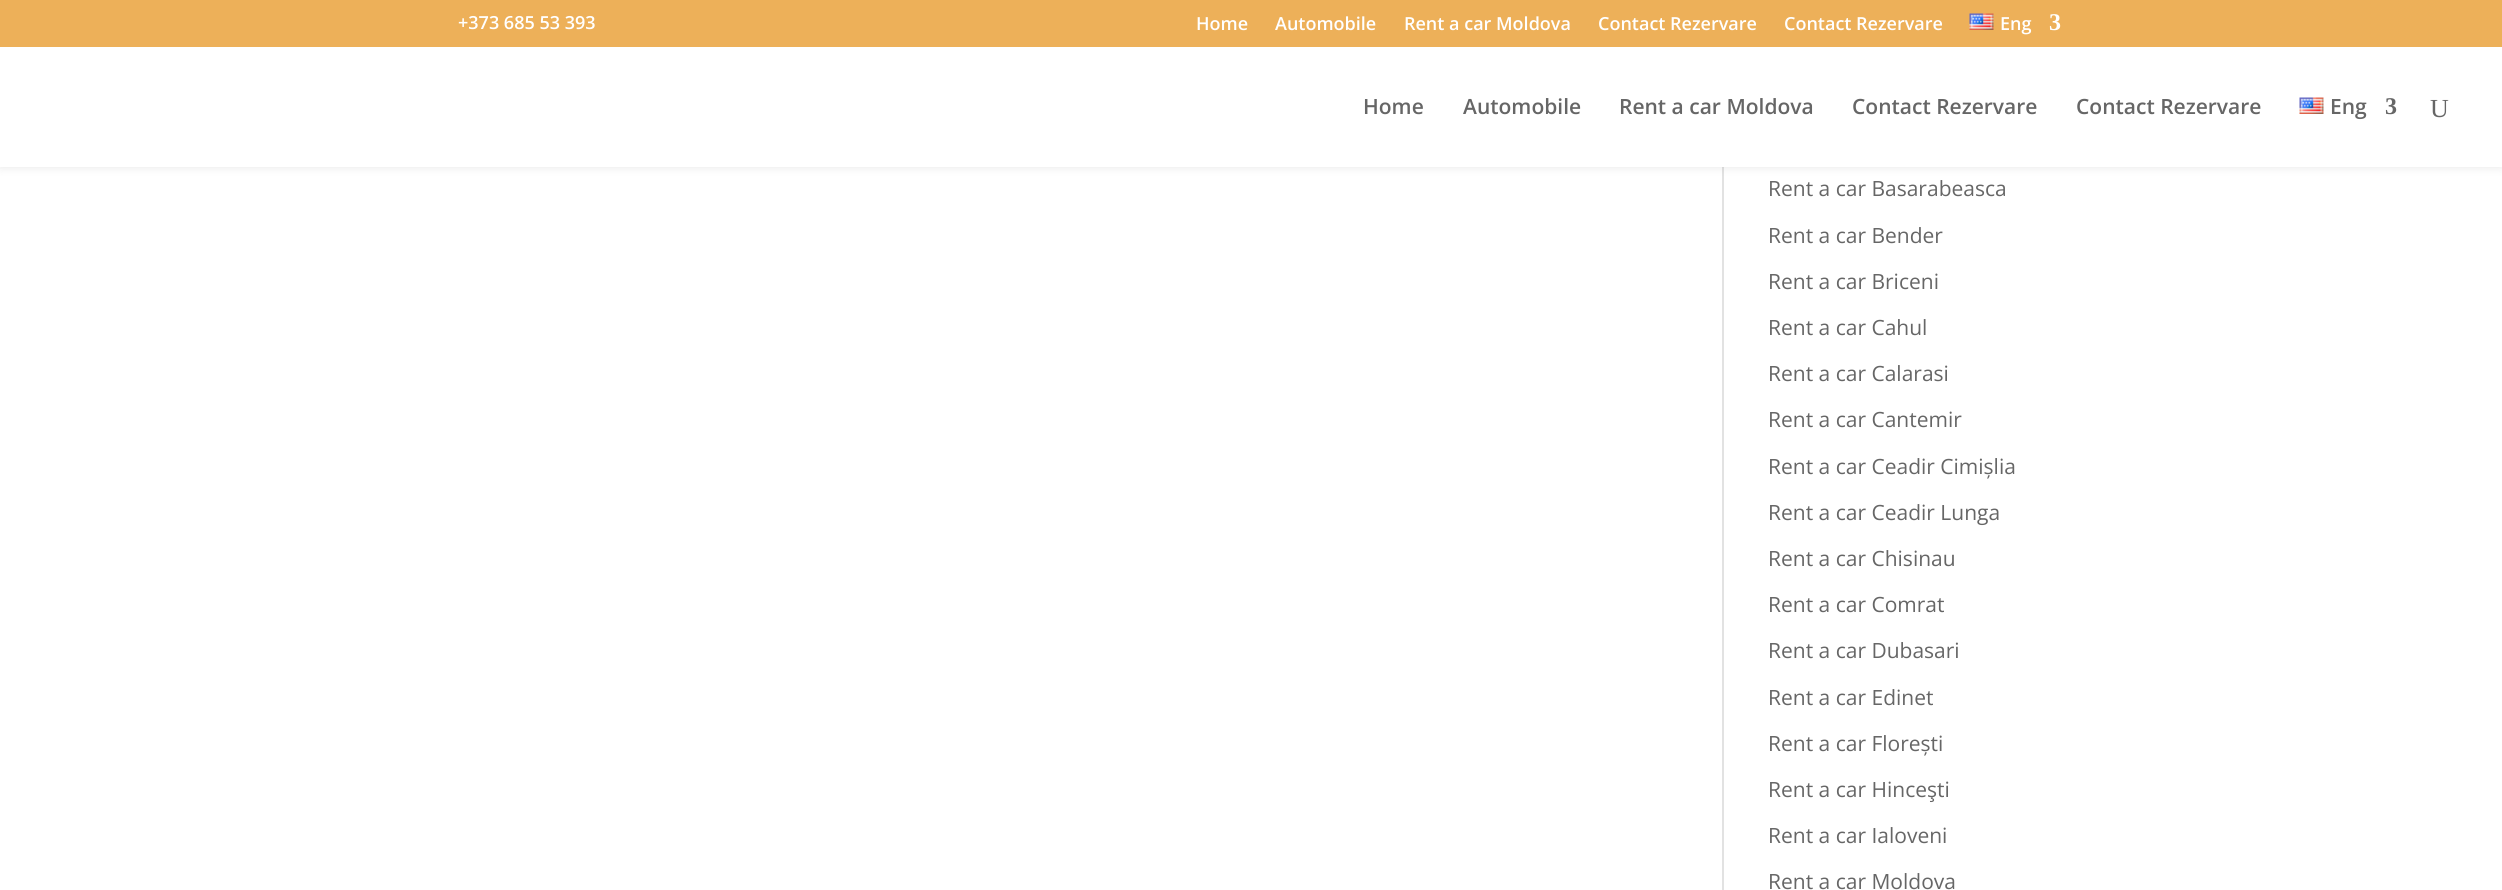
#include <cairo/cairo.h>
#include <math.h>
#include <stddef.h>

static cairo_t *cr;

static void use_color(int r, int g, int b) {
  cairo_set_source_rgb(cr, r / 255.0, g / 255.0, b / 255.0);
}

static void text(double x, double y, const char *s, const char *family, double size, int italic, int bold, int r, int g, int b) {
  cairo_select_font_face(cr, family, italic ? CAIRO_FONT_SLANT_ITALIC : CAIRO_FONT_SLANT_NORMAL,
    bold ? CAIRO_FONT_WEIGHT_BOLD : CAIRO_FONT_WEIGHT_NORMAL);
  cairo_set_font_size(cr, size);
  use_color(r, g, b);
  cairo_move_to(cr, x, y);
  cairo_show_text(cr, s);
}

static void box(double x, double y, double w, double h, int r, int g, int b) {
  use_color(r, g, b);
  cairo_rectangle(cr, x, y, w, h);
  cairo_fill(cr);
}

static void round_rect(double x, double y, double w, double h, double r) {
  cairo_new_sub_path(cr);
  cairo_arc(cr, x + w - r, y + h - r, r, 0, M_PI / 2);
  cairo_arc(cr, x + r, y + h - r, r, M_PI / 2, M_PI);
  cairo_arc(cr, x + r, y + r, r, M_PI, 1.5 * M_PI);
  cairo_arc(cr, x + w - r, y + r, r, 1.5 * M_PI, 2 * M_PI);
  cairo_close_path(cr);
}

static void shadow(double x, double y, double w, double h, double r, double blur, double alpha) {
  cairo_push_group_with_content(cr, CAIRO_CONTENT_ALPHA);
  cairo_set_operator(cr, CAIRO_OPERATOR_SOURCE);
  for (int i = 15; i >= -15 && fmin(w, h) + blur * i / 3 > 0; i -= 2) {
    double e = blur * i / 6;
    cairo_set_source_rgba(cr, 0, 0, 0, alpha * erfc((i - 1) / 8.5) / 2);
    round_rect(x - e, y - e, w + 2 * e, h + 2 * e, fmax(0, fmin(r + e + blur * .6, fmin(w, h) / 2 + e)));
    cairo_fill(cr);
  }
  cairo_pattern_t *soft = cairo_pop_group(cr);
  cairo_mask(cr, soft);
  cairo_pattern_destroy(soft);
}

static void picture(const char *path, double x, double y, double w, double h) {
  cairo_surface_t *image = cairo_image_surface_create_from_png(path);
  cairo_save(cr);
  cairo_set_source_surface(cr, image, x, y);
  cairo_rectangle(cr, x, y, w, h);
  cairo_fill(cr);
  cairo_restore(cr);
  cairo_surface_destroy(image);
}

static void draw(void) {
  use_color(255, 255, 255);
  cairo_paint(cr);
  box(1722, 167, 2, 723, 226, 226, 226);
  use_color(0, 0, 0);
  shadow(0, 47, 2502, 120, 0, 5, 0.1);
  box(0, 0, 2502, 47, 237, 176, 89);
  picture("img_01.png", 1969, 13, 25, 17);
  box(0, 47, 2502, 120, 255, 255, 255);
  picture("img_02.png", 2299, 97, 25, 17);
  text(458, 29, "+373 685 53 393", "Open Sans SemiBold", 18, 0, 0, 255, 255, 255);
  text(1196, 30, "Home", "Open Sans SemiBold", 18, 0, 0, 255, 255, 255);
  text(1275, 30, "Automobile", "Open Sans SemiBold", 18, 0, 0, 255, 255, 255);
  text(1404, 30, "Rent a car Moldova", "Open Sans SemiBold", 18, 0, 0, 255, 255, 255);
  text(1598, 30, "Contact Rezervare", "Open Sans SemiBold", 18, 0, 0, 255, 255, 255);
  text(1784, 30, "Contact Rezervare", "Open Sans SemiBold", 18, 0, 0, 255, 255, 255);
  text(2000, 30, "Eng", "Open Sans SemiBold", 18, 0, 0, 255, 255, 255);
  text(2049, 30, "3", "Liberation Serif", 24, 0, 1, 255, 255, 255);
  text(1363, 114, "Home", "Open Sans SemiBold", 21, 0, 0, 102, 102, 102);
  text(1463, 114, "Automobile", "Open Sans SemiBold", 21, 0, 0, 102, 102, 102);
  text(1619, 114, "Rent a car Moldova", "Open Sans SemiBold", 21, 0, 0, 102, 102, 102);
  text(1852, 114, "Contact Rezervare", "Open Sans SemiBold", 21, 0, 0, 102, 102, 102);
  text(2076, 114, "Contact Rezervare", "Open Sans SemiBold", 21, 0, 0, 102, 102, 102);
  text(2330, 114, "Eng", "Open Sans SemiBold", 21, 0, 0, 102, 102, 102);
  text(2385, 114, "3", "Liberation Serif", 24, 0, 1, 102, 102, 102);
  text(2430, 117, "U", "Liberation Serif", 26, 0, 0, 102, 102, 102);
  text(1768, 196, "Rent a car Basarabeasca", "Open Sans", 21, 0, 0, 102, 102, 102);
  text(1768, 243, "Rent a car Bender", "Open Sans", 21, 0, 0, 102, 102, 102);
  text(1768, 289, "Rent a car Briceni", "Open Sans", 21, 0, 0, 102, 102, 102);
  text(1768, 335, "Rent a car Cahul", "Open Sans", 21, 0, 0, 102, 102, 102);
  text(1768, 381, "Rent a car Calarasi", "Open Sans", 21, 0, 0, 102, 102, 102);
  text(1768, 427, "Rent a car Cantemir", "Open Sans", 21, 0, 0, 102, 102, 102);
  text(1768, 474, "Rent a car Ceadir Cimișlia", "Open Sans", 21, 0, 0, 102, 102, 102);
  text(1768, 520, "Rent a car Ceadir Lunga", "Open Sans", 21, 0, 0, 102, 102, 102);
  text(1768, 566, "Rent a car Chisinau", "Open Sans", 21, 0, 0, 102, 102, 102);
  text(1768, 612, "Rent a car Comrat", "Open Sans", 21, 0, 0, 102, 102, 102);
  text(1768, 658, "Rent a car Dubasari", "Open Sans", 21, 0, 0, 102, 102, 102);
  text(1768, 705, "Rent a car Edinet", "Open Sans", 21, 0, 0, 102, 102, 102);
  text(1768, 751, "Rent a car Florești", "Open Sans", 21, 0, 0, 102, 102, 102);
  text(1768, 797, "Rent a car Hinceşti", "Open Sans", 21, 0, 0, 102, 102, 102);
  text(1768, 843, "Rent a car Ialoveni", "Open Sans", 21, 0, 0, 102, 102, 102);
  text(1768, 889, "Rent a car Moldova", "Open Sans", 21, 0, 0, 102, 102, 102);
}

int main(void) {
  cairo_surface_t *surface = cairo_image_surface_create(CAIRO_FORMAT_RGB24, 2502, 890);
  cr = cairo_create(surface);
  cairo_font_options_t *options = cairo_font_options_create();
  cairo_font_options_set_hint_metrics(options, CAIRO_HINT_METRICS_OFF);
  cairo_font_options_set_hint_style(options, CAIRO_HINT_STYLE_NONE);
  cairo_set_font_options(cr, options);
  cairo_set_miter_limit(cr, 4);
  draw();
  cairo_surface_write_to_png(surface, "out.png");
  cairo_font_options_destroy(options);
  cairo_destroy(cr);
  cairo_surface_destroy(surface);
  return 0;
}
